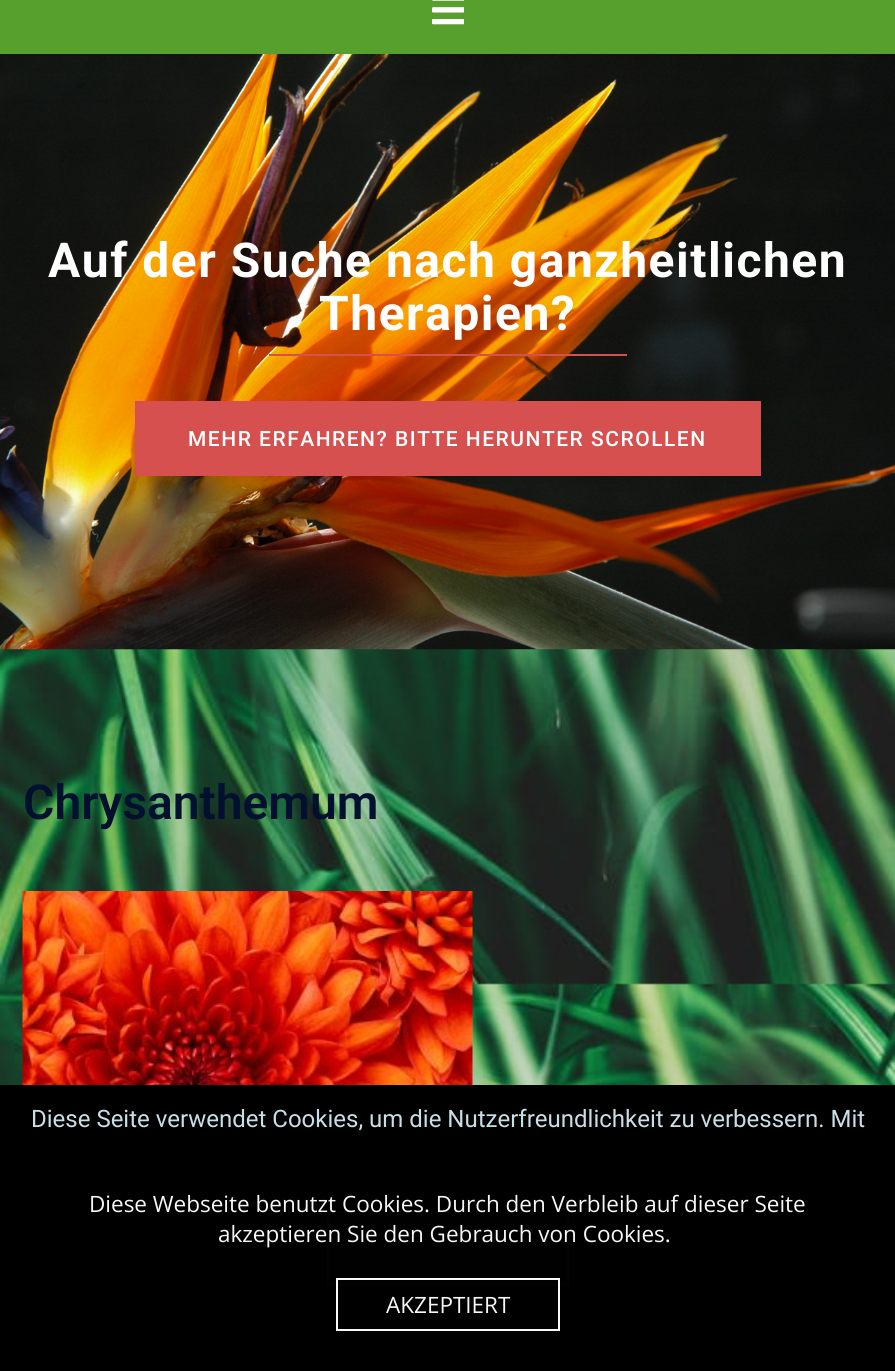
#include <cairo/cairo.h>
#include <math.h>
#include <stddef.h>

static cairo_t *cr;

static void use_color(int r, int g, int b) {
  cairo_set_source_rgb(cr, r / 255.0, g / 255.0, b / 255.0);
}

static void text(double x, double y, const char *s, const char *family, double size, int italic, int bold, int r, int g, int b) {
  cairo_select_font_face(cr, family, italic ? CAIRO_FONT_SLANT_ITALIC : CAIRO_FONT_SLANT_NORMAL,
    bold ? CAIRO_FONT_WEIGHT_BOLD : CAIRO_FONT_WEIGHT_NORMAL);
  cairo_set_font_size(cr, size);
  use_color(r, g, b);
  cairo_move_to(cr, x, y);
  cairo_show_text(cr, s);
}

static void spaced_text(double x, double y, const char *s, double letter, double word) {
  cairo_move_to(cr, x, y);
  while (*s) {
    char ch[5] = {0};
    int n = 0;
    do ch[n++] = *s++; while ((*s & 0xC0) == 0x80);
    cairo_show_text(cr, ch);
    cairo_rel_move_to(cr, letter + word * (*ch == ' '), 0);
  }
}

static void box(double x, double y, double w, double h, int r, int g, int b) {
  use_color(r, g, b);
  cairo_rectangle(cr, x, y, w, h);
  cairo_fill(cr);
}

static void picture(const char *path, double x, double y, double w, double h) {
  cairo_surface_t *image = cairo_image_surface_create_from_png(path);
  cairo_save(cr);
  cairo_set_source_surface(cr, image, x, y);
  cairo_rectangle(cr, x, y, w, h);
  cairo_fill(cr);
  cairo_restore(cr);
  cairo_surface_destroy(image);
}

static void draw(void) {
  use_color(255, 255, 255);
  cairo_paint(cr);
  picture("img_01.png", 0, 649, 895, 436);
  box(0, 0, 895, 54, 88, 160, 46);
  picture("img_02.png", 432, 0, 32, 25);
  picture("img_03.png", 0, 54, 895, 596);
  box(269, 354, 358, 2, 214, 80, 80);
  box(135, 401, 626, 75, 214, 80, 80);
  picture("img_04.png", 22, 891, 451, 194);
  box(0, 1085, 895, 286, 0, 0, 0);
  use_color(34, 34, 34);
  cairo_rectangle(cr, 328, 1212, 240, 73);
  cairo_fill_preserve(cr);
  use_color(214, 80, 80);
  cairo_stroke(cr);
  cairo_set_source_rgba(cr, 0, 0, 0, 0.97);
  cairo_rectangle(cr, 327, 1211, 242, 75);
  cairo_fill(cr);
  cairo_rectangle(cr, 337, 1279, 222, 51);
  cairo_set_source_rgba(cr, 1, 1, 1, 0.97);
  cairo_stroke(cr);
  cairo_select_font_face(cr, "Roboto", CAIRO_FONT_SLANT_NORMAL, CAIRO_FONT_WEIGHT_BOLD);
  cairo_set_font_size(cr, 48);
  use_color(255, 255, 255);
  spaced_text(48, 277, "Auf der Suche nach ganzheitlichen", 1.5, 0);
  spaced_text(319, 330, "Therapien?", 1.5, 0);
  cairo_select_font_face(cr, "Roboto Medium", CAIRO_FONT_SLANT_NORMAL, CAIRO_FONT_WEIGHT_NORMAL);
  cairo_set_font_size(cr, 21);
  spaced_text(188, 446, "MEHR ERFAHREN? BITTE HERUNTER SCROLLEN", 1.5, 0);
  text(23, 819, "Chrysanthemum", "Roboto SemiBold", 48, 0, 0, 0, 16, 46);
  text(31, 1127, "Diese Seite verwendet Cookies, um die Nutzerfreundlichkeit zu verbessern. Mit", "Roboto", 24, 0, 0, 201, 223, 232);
  text(89, 1212, "Diese Webseite benutzt Cookies. Durch den Verbleib auf dieser Seite", "Open Sans", 22.5, 0, 0, 247, 247, 247);
  text(218, 1242, "akzeptieren Sie den Gebrauch von Cookies.", "Open Sans", 22.5, 0, 0, 247, 247, 247);
  text(386, 1313, "AKZEPTIERT", "Open Sans", 22.5, 0, 0, 247, 247, 247);
}

int main(void) {
  cairo_surface_t *surface = cairo_image_surface_create(CAIRO_FORMAT_RGB24, 895, 1371);
  cr = cairo_create(surface);
  cairo_font_options_t *options = cairo_font_options_create();
  cairo_font_options_set_hint_metrics(options, CAIRO_HINT_METRICS_OFF);
  cairo_font_options_set_hint_style(options, CAIRO_HINT_STYLE_NONE);
  cairo_set_font_options(cr, options);
  cairo_set_miter_limit(cr, 4);
  draw();
  cairo_surface_write_to_png(surface, "out.png");
  cairo_font_options_destroy(options);
  cairo_destroy(cr);
  cairo_surface_destroy(surface);
  return 0;
}
